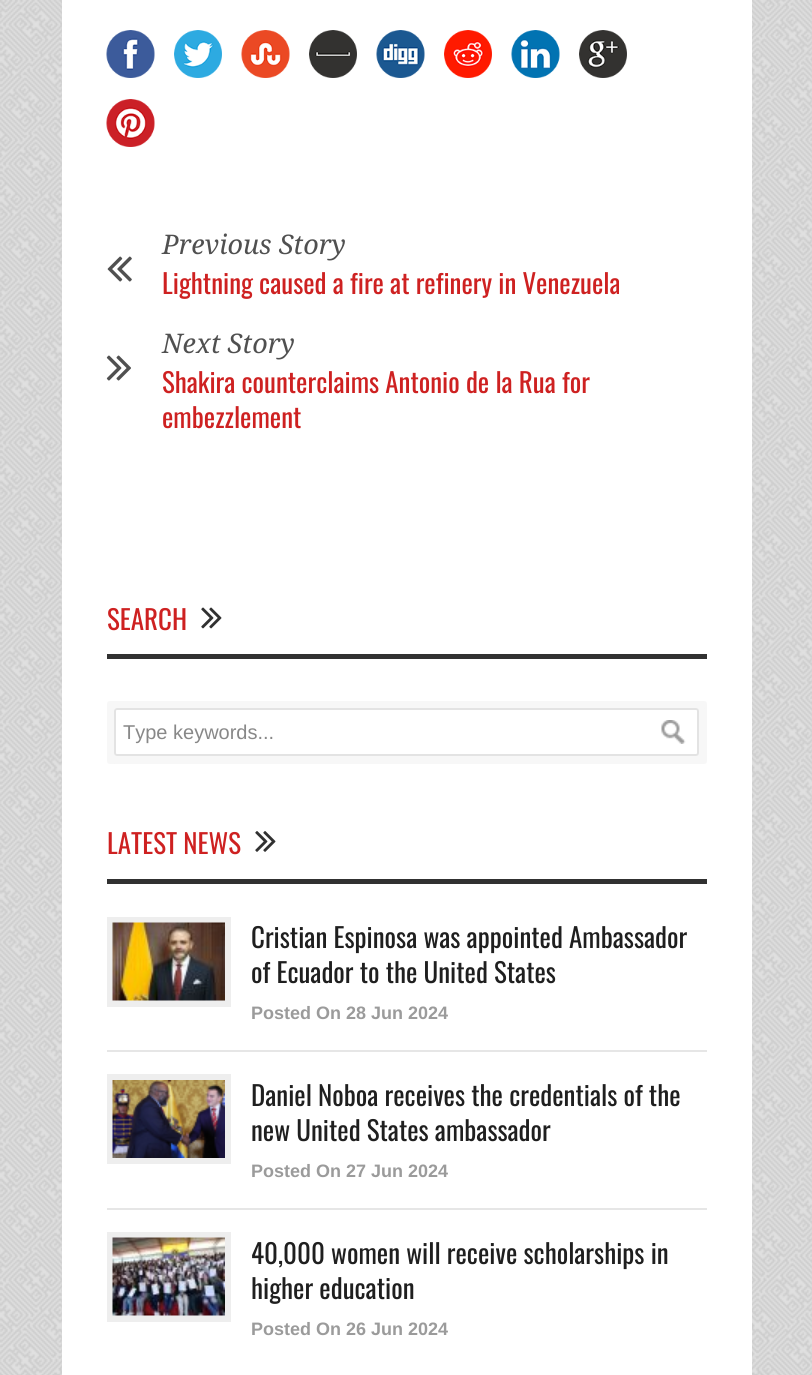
#include <cairo/cairo.h>
#include <math.h>
#include <stddef.h>

static cairo_t *cr;

static void use_color(int r, int g, int b) {
  cairo_set_source_rgb(cr, r / 255.0, g / 255.0, b / 255.0);
}

static void text(double x, double y, const char *s, const char *family, double size, int italic, int bold, int r, int g, int b) {
  cairo_select_font_face(cr, family, italic ? CAIRO_FONT_SLANT_ITALIC : CAIRO_FONT_SLANT_NORMAL,
    bold ? CAIRO_FONT_WEIGHT_BOLD : CAIRO_FONT_WEIGHT_NORMAL);
  cairo_set_font_size(cr, size);
  use_color(r, g, b);
  cairo_move_to(cr, x, y);
  cairo_show_text(cr, s);
}

static void box(double x, double y, double w, double h, int r, int g, int b) {
  use_color(r, g, b);
  cairo_rectangle(cr, x, y, w, h);
  cairo_fill(cr);
}

static void round_rect(double x, double y, double w, double h, double r) {
  cairo_new_sub_path(cr);
  cairo_arc(cr, x + w - r, y + h - r, r, 0, M_PI / 2);
  cairo_arc(cr, x + r, y + h - r, r, M_PI / 2, M_PI);
  cairo_arc(cr, x + r, y + r, r, M_PI, 1.5 * M_PI);
  cairo_arc(cr, x + w - r, y + r, r, 1.5 * M_PI, 2 * M_PI);
  cairo_close_path(cr);
}

static void picture(const char *path, double x, double y, double w, double h) {
  cairo_surface_t *image = cairo_image_surface_create_from_png(path);
  cairo_save(cr);
  cairo_set_source_surface(cr, image, x, y);
  cairo_rectangle(cr, x, y, w, h);
  cairo_fill(cr);
  cairo_restore(cr);
  cairo_surface_destroy(image);
}

static void draw(void) {
  use_color(255, 255, 255);
  cairo_paint(cr);
  picture("img_01.png", 0, 0, 812, 1375);
  box(62, 0, 690, 1375, 255, 255, 255);
  picture("img_02.png", 106, 30, 49, 48);
  picture("img_03.png", 174, 30, 48, 48);
  picture("img_04.png", 241, 30, 49, 48);
  picture("img_05.png", 309, 30, 48, 48);
  picture("img_06.png", 376, 30, 49, 48);
  picture("img_07.png", 444, 30, 48, 48);
  picture("img_08.png", 511, 30, 49, 48);
  picture("img_09.png", 579, 30, 48, 48);
  picture("img_10.png", 106, 99, 49, 48);
  picture("img_11.png", 107, 256, 25, 26);
  picture("img_12.png", 106, 355, 25, 26);
  box(107, 654, 600, 5, 49, 49, 49);
  picture("img_13.png", 201, 607, 21, 22);
  use_color(247, 247, 247);
  cairo_new_path(cr);
  cairo_move_to(cr, 110, 716);
  cairo_curve_to(cr, 108, 716, 107, 717, 107, 719);
  cairo_line_to(cr, 107, 761);
  cairo_curve_to(cr, 107, 763, 108, 764, 110, 764);
  cairo_line_to(cr, 689, 764);
  cairo_curve_to(cr, 691, 764, 692, 763, 692, 761);
  cairo_line_to(cr, 692, 756);
  cairo_line_to(cr, 117, 756);
  cairo_curve_to(cr, 115, 756, 114, 755, 114, 753);
  cairo_line_to(cr, 114, 716);
  cairo_close_path(cr);
  cairo_fill(cr);
  cairo_new_path(cr);
  cairo_move_to(cr, 125, 701);
  cairo_curve_to(cr, 121, 701, 122, 706, 122, 708);
  cairo_line_to(cr, 696, 708);
  cairo_curve_to(cr, 698, 708, 699, 709, 699, 711);
  cairo_line_to(cr, 699, 749);
  cairo_line_to(cr, 704, 749);
  cairo_curve_to(cr, 706, 749, 707, 748, 707, 746);
  cairo_line_to(cr, 707, 704);
  cairo_curve_to(cr, 707, 702, 706, 701, 704, 701);
  cairo_close_path(cr);
  cairo_fill(cr);
  cairo_new_path(cr);
  cairo_move_to(cr, 114, 753);
  cairo_curve_to(cr, 114, 756, 112, 764, 117, 764);
  cairo_line_to(cr, 697, 764);
  cairo_curve_to(cr, 700, 762, 699, 756, 699, 753);
  cairo_curve_to(cr, 699, 755, 698, 756, 696, 756);
  cairo_line_to(cr, 117, 756);
  cairo_curve_to(cr, 115, 756, 114, 755, 114, 753);
  cairo_close_path(cr);
  cairo_fill(cr);
  cairo_new_path(cr);
  cairo_move_to(cr, 696, 756);
  cairo_curve_to(cr, 707, 756, 707, 758, 707, 746);
  cairo_line_to(cr, 707, 718);
  cairo_curve_to(cr, 707, 706, 707, 708, 696, 708);
  cairo_curve_to(cr, 698, 708, 699, 709, 699, 711);
  cairo_line_to(cr, 699, 753);
  cairo_curve_to(cr, 699, 755, 698, 756, 696, 756);
  cairo_close_path(cr);
  cairo_fill(cr);
  cairo_new_path(cr);
  cairo_move_to(cr, 122, 756);
  cairo_line_to(cr, 122, 761);
  cairo_curve_to(cr, 122, 763, 123, 764, 125, 764);
  cairo_line_to(cr, 704, 764);
  cairo_curve_to(cr, 706, 764, 707, 763, 707, 761);
  cairo_line_to(cr, 707, 719);
  cairo_curve_to(cr, 707, 717, 706, 716, 704, 716);
  cairo_line_to(cr, 699, 716);
  cairo_line_to(cr, 699, 753);
  cairo_curve_to(cr, 699, 755, 698, 756, 696, 756);
  cairo_close_path(cr);
  cairo_fill(cr);
  cairo_new_path(cr);
  cairo_move_to(cr, 110, 701);
  cairo_curve_to(cr, 108, 701, 107, 702, 107, 704);
  cairo_line_to(cr, 107, 746);
  cairo_curve_to(cr, 107, 748, 108, 749, 110, 749);
  cairo_line_to(cr, 114, 749);
  cairo_line_to(cr, 114, 711);
  cairo_curve_to(cr, 114, 709, 115, 708, 117, 708);
  cairo_line_to(cr, 692, 708);
  cairo_curve_to(cr, 692, 706, 693, 701, 689, 701);
  cairo_close_path(cr);
  cairo_fill(cr);
  use_color(255, 255, 255);
  round_rect(115, 709, 583, 46, 2);
  cairo_fill_preserve(cr);
  use_color(227, 227, 227);
  cairo_stroke(cr);
  picture("img_14.png", 661, 720, 25, 24);
  box(107, 879, 600, 5, 49, 49, 49);
  picture("img_15.png", 255, 831, 21, 21);
  box(107, 1050, 600, 2, 230, 230, 230);
  box(107, 917, 124, 90, 238, 238, 238);
  picture("img_16.png", 112, 922, 113, 79);
  box(107, 1208, 600, 2, 230, 230, 230);
  box(107, 1074, 124, 90, 238, 238, 238);
  picture("img_17.png", 112, 1080, 113, 78);
  box(107, 1232, 124, 90, 238, 238, 238);
  picture("img_18.png", 112, 1237, 113, 79);
  text(162, 254, "Previous Story", "Droid Serif", 27, 1, 0, 80, 80, 80);
  text(162, 294, "Lightning caused a fire at refinery in Venezuela", "Oswald", 27, 0, 0, 206, 33, 33);
  text(162, 353, "Next Story", "Droid Serif", 27, 1, 0, 80, 80, 80);
  text(162, 393, "Shakira counterclaims Antonio de la Rua for", "Oswald", 27, 0, 0, 206, 33, 33);
  text(162, 428, "embezzlement", "Oswald", 27, 0, 0, 206, 33, 33);
  text(107, 630, "SEARCH", "Oswald", 27, 0, 0, 206, 33, 33);
  text(123, 739, "Type keywords...", "Liberation Sans", 20, 0, 0, 136, 136, 136);
  text(107, 854, "LATEST NEWS", "Oswald", 27, 0, 0, 206, 33, 33);
  text(251, 948, "Cristian Espinosa was appointed Ambassador", "Oswald", 27, 0, 0, 31, 31, 31);
  text(251, 983, "of Ecuador to the United States", "Oswald", 27, 0, 0, 31, 31, 31);
  text(251, 1019, "Posted On 28 Jun 2024", "Liberation Sans", 18, 0, 1, 155, 155, 155);
  text(251, 1106, "Daniel Noboa receives the credentials of the", "Oswald", 27, 0, 0, 31, 31, 31);
  text(251, 1141, "new United States ambassador", "Oswald", 27, 0, 0, 31, 31, 31);
  text(251, 1177, "Posted On 27 Jun 2024", "Liberation Sans", 18, 0, 1, 155, 155, 155);
  text(251, 1264, "40,000 women will receive scholarships in", "Oswald", 27, 0, 0, 31, 31, 31);
  text(251, 1299, "higher education", "Oswald", 27, 0, 0, 31, 31, 31);
  text(251, 1335, "Posted On 26 Jun 2024", "Liberation Sans", 18, 0, 1, 155, 155, 155);
}

int main(void) {
  cairo_surface_t *surface = cairo_image_surface_create(CAIRO_FORMAT_RGB24, 812, 1375);
  cr = cairo_create(surface);
  cairo_font_options_t *options = cairo_font_options_create();
  cairo_font_options_set_hint_metrics(options, CAIRO_HINT_METRICS_OFF);
  cairo_font_options_set_hint_style(options, CAIRO_HINT_STYLE_NONE);
  cairo_set_font_options(cr, options);
  cairo_set_miter_limit(cr, 4);
  draw();
  cairo_surface_write_to_png(surface, "out.png");
  cairo_font_options_destroy(options);
  cairo_destroy(cr);
  cairo_surface_destroy(surface);
  return 0;
}
